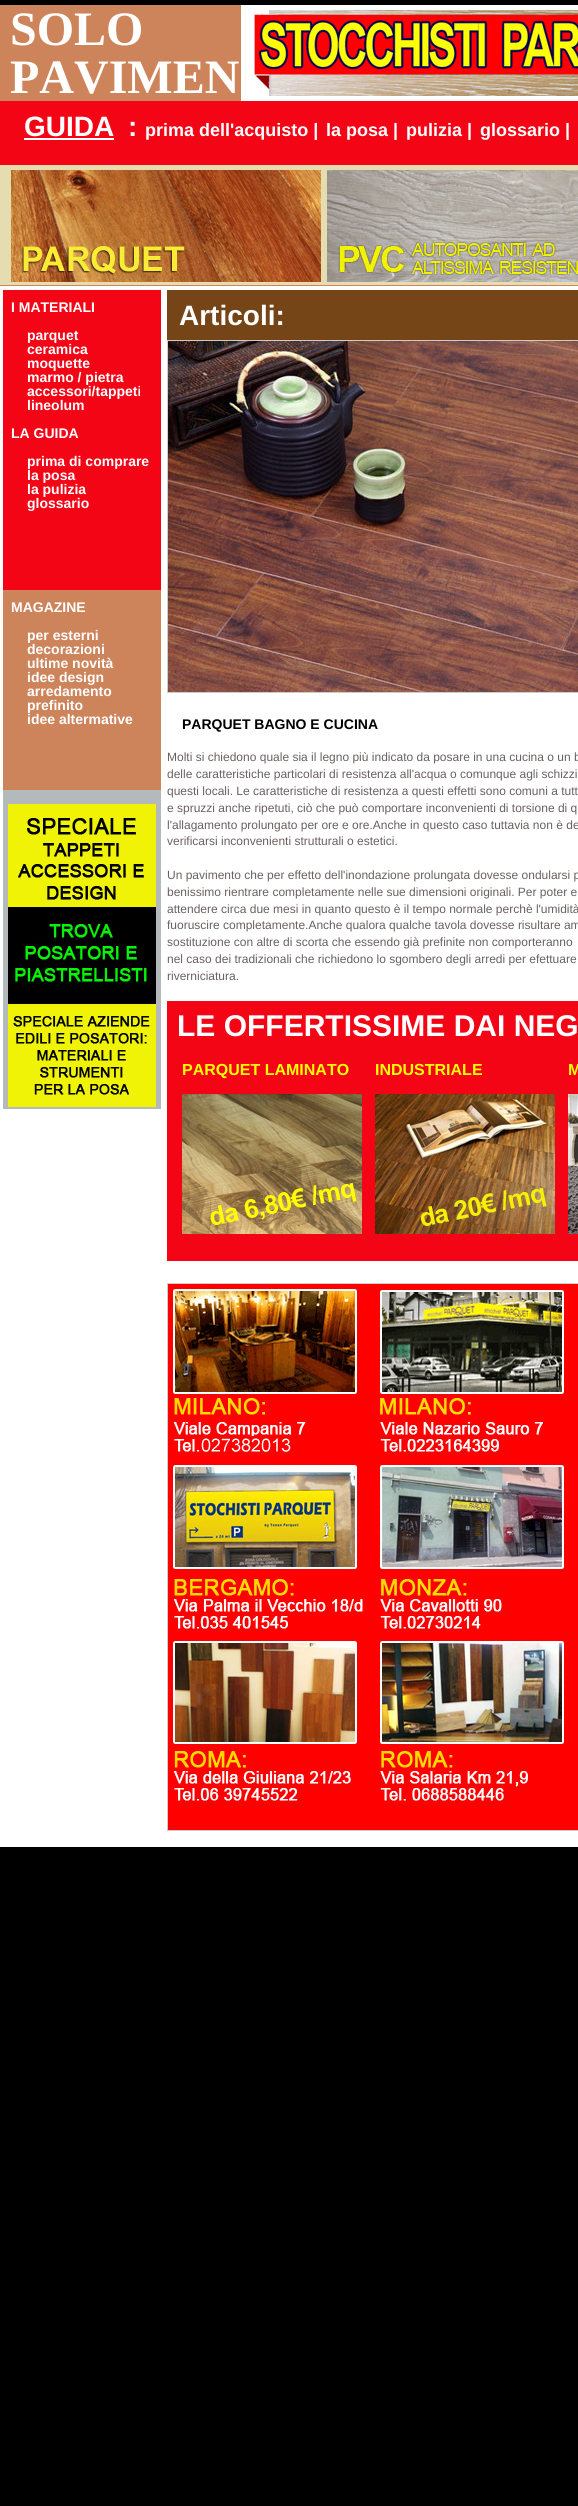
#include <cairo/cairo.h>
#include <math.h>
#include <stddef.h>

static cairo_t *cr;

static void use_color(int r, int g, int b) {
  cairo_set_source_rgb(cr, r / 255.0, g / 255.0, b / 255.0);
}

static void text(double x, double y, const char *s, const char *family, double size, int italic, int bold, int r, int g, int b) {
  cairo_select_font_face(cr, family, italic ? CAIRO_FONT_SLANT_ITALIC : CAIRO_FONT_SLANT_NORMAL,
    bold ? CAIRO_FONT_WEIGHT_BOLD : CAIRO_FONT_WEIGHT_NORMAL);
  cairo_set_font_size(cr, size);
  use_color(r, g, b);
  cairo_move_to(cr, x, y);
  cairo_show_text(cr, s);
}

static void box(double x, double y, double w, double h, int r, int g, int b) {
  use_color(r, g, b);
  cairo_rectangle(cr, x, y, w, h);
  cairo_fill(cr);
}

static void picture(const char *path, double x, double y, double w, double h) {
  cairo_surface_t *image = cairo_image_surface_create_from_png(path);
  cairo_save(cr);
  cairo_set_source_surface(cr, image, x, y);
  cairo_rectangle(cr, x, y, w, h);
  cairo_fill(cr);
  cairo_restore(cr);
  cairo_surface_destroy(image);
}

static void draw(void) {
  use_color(0, 0, 0);
  cairo_paint(cr);
  box(0, 5, 578, 1842, 255, 255, 255);
  box(0, 5, 241, 96, 206, 132, 91);
  picture("img_01.png", 251, 10, 327, 86);
  box(0, 101, 578, 64, 243, 5, 22);
  box(24, 138, 90, 2, 255, 255, 255);
  box(0, 165, 578, 120, 229, 221, 175);
  picture("img_02.png", 11, 170, 310, 112);
  picture("img_03.png", 327, 170, 251, 112);
  box(0, 285, 578, 1, 206, 132, 91);
  box(3, 290, 158, 300, 243, 5, 22);
  box(3, 590, 158, 200, 206, 132, 91);
  box(3, 790, 158, 319, 180, 185, 188);
  picture("img_04.png", 8, 804, 148, 303);
  box(167, 290, 411, 50, 117, 69, 23);
  cairo_rectangle(cr, 167.5, 340.5, 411, 352);
  use_color(204, 204, 204);
  cairo_set_line_width(cr, 1);
  cairo_stroke(cr);
  picture("img_05.png", 168, 341, 410, 351);
  box(167, 1001, 411, 260, 243, 5, 22);
  picture("img_06.png", 182, 1094, 180, 140);
  picture("img_07.png", 375, 1094, 180, 140);
  picture("img_08.png", 568, 1094, 10, 140);
  cairo_rectangle(cr, 167.5, 1283.5, 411, 547);
  use_color(204, 204, 204);
  cairo_stroke(cr);
  picture("img_09.png", 168, 1284, 410, 546);
  text(10, 45, "SOLO", "Liberation Serif", 48, 0, 1, 255, 255, 255);
  text(10, 93, "PAVIMEN", "Liberation Serif", 48, 0, 1, 255, 255, 255);
  text(24, 136, "GUIDA", "Liberation Sans", 28, 0, 1, 255, 255, 255);
  text(128, 136, ":", "Liberation Sans", 28, 0, 1, 255, 255, 255);
  text(145, 136, "prima dell'acquisto |", "Liberation Sans", 18, 0, 1, 255, 255, 255);
  text(326, 136, "la posa |", "Liberation Sans", 18, 0, 1, 255, 255, 255);
  text(406, 136, "pulizia |", "Liberation Sans", 18, 0, 1, 255, 255, 255);
  text(480, 136, "glossario |", "Liberation Sans", 18, 0, 1, 255, 255, 255);
  text(11, 312, "I MATERIALI", "Liberation Sans", 14, 0, 1, 255, 255, 255);
  text(27, 340, "parquet", "Liberation Sans", 14, 0, 1, 255, 255, 255);
  text(27, 354, "ceramica", "Liberation Sans", 14, 0, 1, 255, 255, 255);
  text(27, 368, "moquette", "Liberation Sans", 14, 0, 1, 255, 255, 255);
  text(27, 382, "marmo / pietra", "Liberation Sans", 14, 0, 1, 255, 255, 255);
  text(27, 396, "accessori/tappeti", "Liberation Sans", 14, 0, 1, 255, 255, 255);
  text(27, 410, "lineolum", "Liberation Sans", 14, 0, 1, 255, 255, 255);
  text(11, 438, "LA GUIDA", "Liberation Sans", 14, 0, 1, 255, 255, 255);
  text(27, 466, "prima di comprare", "Liberation Sans", 14, 0, 1, 255, 255, 255);
  text(27, 480, "la posa", "Liberation Sans", 14, 0, 1, 255, 255, 255);
  text(27, 494, "la pulizia", "Liberation Sans", 14, 0, 1, 255, 255, 255);
  text(27, 508, "glossario", "Liberation Sans", 14, 0, 1, 255, 255, 255);
  text(11, 612, "MAGAZINE", "Liberation Sans", 14, 0, 1, 255, 255, 255);
  text(27, 640, "per esterni", "Liberation Sans", 14, 0, 1, 255, 255, 255);
  text(27, 654, "decorazioni", "Liberation Sans", 14, 0, 1, 255, 255, 255);
  text(27, 668, "ultime novità", "Liberation Sans", 14, 0, 1, 255, 255, 255);
  text(27, 682, "idee design", "Liberation Sans", 14, 0, 1, 255, 255, 255);
  text(27, 696, "arredamento", "Liberation Sans", 14, 0, 1, 255, 255, 255);
  text(27, 710, "prefinito", "Liberation Sans", 14, 0, 1, 255, 255, 255);
  text(27, 724, "idee altermative", "Liberation Sans", 14, 0, 1, 255, 255, 255);
  text(179, 325, "Articoli:", "Liberation Sans", 28, 0, 1, 255, 255, 255);
  text(182, 729, "PARQUET BAGNO E CUCINA", "Liberation Sans", 14, 0, 1, 0, 0, 0);
  text(167, 761, "Molti si chiedono quale sia il legno più indicato da posare in una cucina o un b", "Liberation Sans", 12, 0, 0, 106, 96, 97);
  text(167, 778, "delle caratteristiche particolari di resistenza all'acqua o comunque agli schizzi", "Liberation Sans", 12, 0, 0, 106, 96, 97);
  text(167, 795, "questi locali. Le caratteristiche di resistenza a questi effetti sono comuni a tutt", "Liberation Sans", 12, 0, 0, 106, 96, 97);
  text(167, 812, "e spruzzi anche ripetuti, ciò che può comportare inconvenienti di torsione di q", "Liberation Sans", 12, 0, 0, 106, 96, 97);
  text(167, 829, "l'allagamento prolungato per ore e ore.Anche in questo caso tuttavia non è de", "Liberation Sans", 12, 0, 0, 106, 96, 97);
  text(167, 845, "verificarsi inconvenienti strutturali o estetici.", "Liberation Sans", 12, 0, 0, 106, 96, 97);
  text(167, 879, "Un pavimento che per effetto dell'inondazione prolungata dovesse ondularsi p", "Liberation Sans", 12, 0, 0, 106, 96, 97);
  text(167, 896, "benissimo rientrare completamente nelle sue dimensioni originali. Per poter e", "Liberation Sans", 12, 0, 0, 106, 96, 97);
  text(167, 913, "attendere circa due mesi in quanto questo è il tempo normale perchè l'umidità", "Liberation Sans", 12, 0, 0, 106, 96, 97);
  text(167, 929, "fuoruscire completamente.Anche qualora qualche tavola dovesse risultare am", "Liberation Sans", 12, 0, 0, 106, 96, 97);
  text(167, 946, "sostituzione con altre di scorta che essendo già prefinite non comporteranno", "Liberation Sans", 12, 0, 0, 106, 96, 97);
  text(167, 963, "nel caso dei tradizionali che richiedono lo sgombero degli arredi per efettuare", "Liberation Sans", 12, 0, 0, 106, 96, 97);
  text(167, 980, "riverniciatura.", "Liberation Sans", 12, 0, 0, 106, 96, 97);
  text(177, 1036, "LE OFFERTISSIME DAI NEG", "Liberation Sans", 30, 0, 1, 255, 255, 255);
  text(182, 1075, "PARQUET LAMINATO", "Liberation Sans", 16, 0, 1, 255, 255, 0);
  text(375, 1075, "INDUSTRIALE", "Liberation Sans", 16, 0, 1, 255, 255, 0);
  text(568, 1075, "M", "Liberation Sans", 16, 0, 1, 255, 255, 0);
}

int main(void) {
  cairo_surface_t *surface = cairo_image_surface_create(CAIRO_FORMAT_RGB24, 578, 2506);
  cr = cairo_create(surface);
  cairo_font_options_t *options = cairo_font_options_create();
  cairo_font_options_set_hint_metrics(options, CAIRO_HINT_METRICS_OFF);
  cairo_font_options_set_hint_style(options, CAIRO_HINT_STYLE_NONE);
  cairo_set_font_options(cr, options);
  cairo_set_miter_limit(cr, 4);
  draw();
  cairo_surface_write_to_png(surface, "out.png");
  cairo_font_options_destroy(options);
  cairo_destroy(cr);
  cairo_surface_destroy(surface);
  return 0;
}
